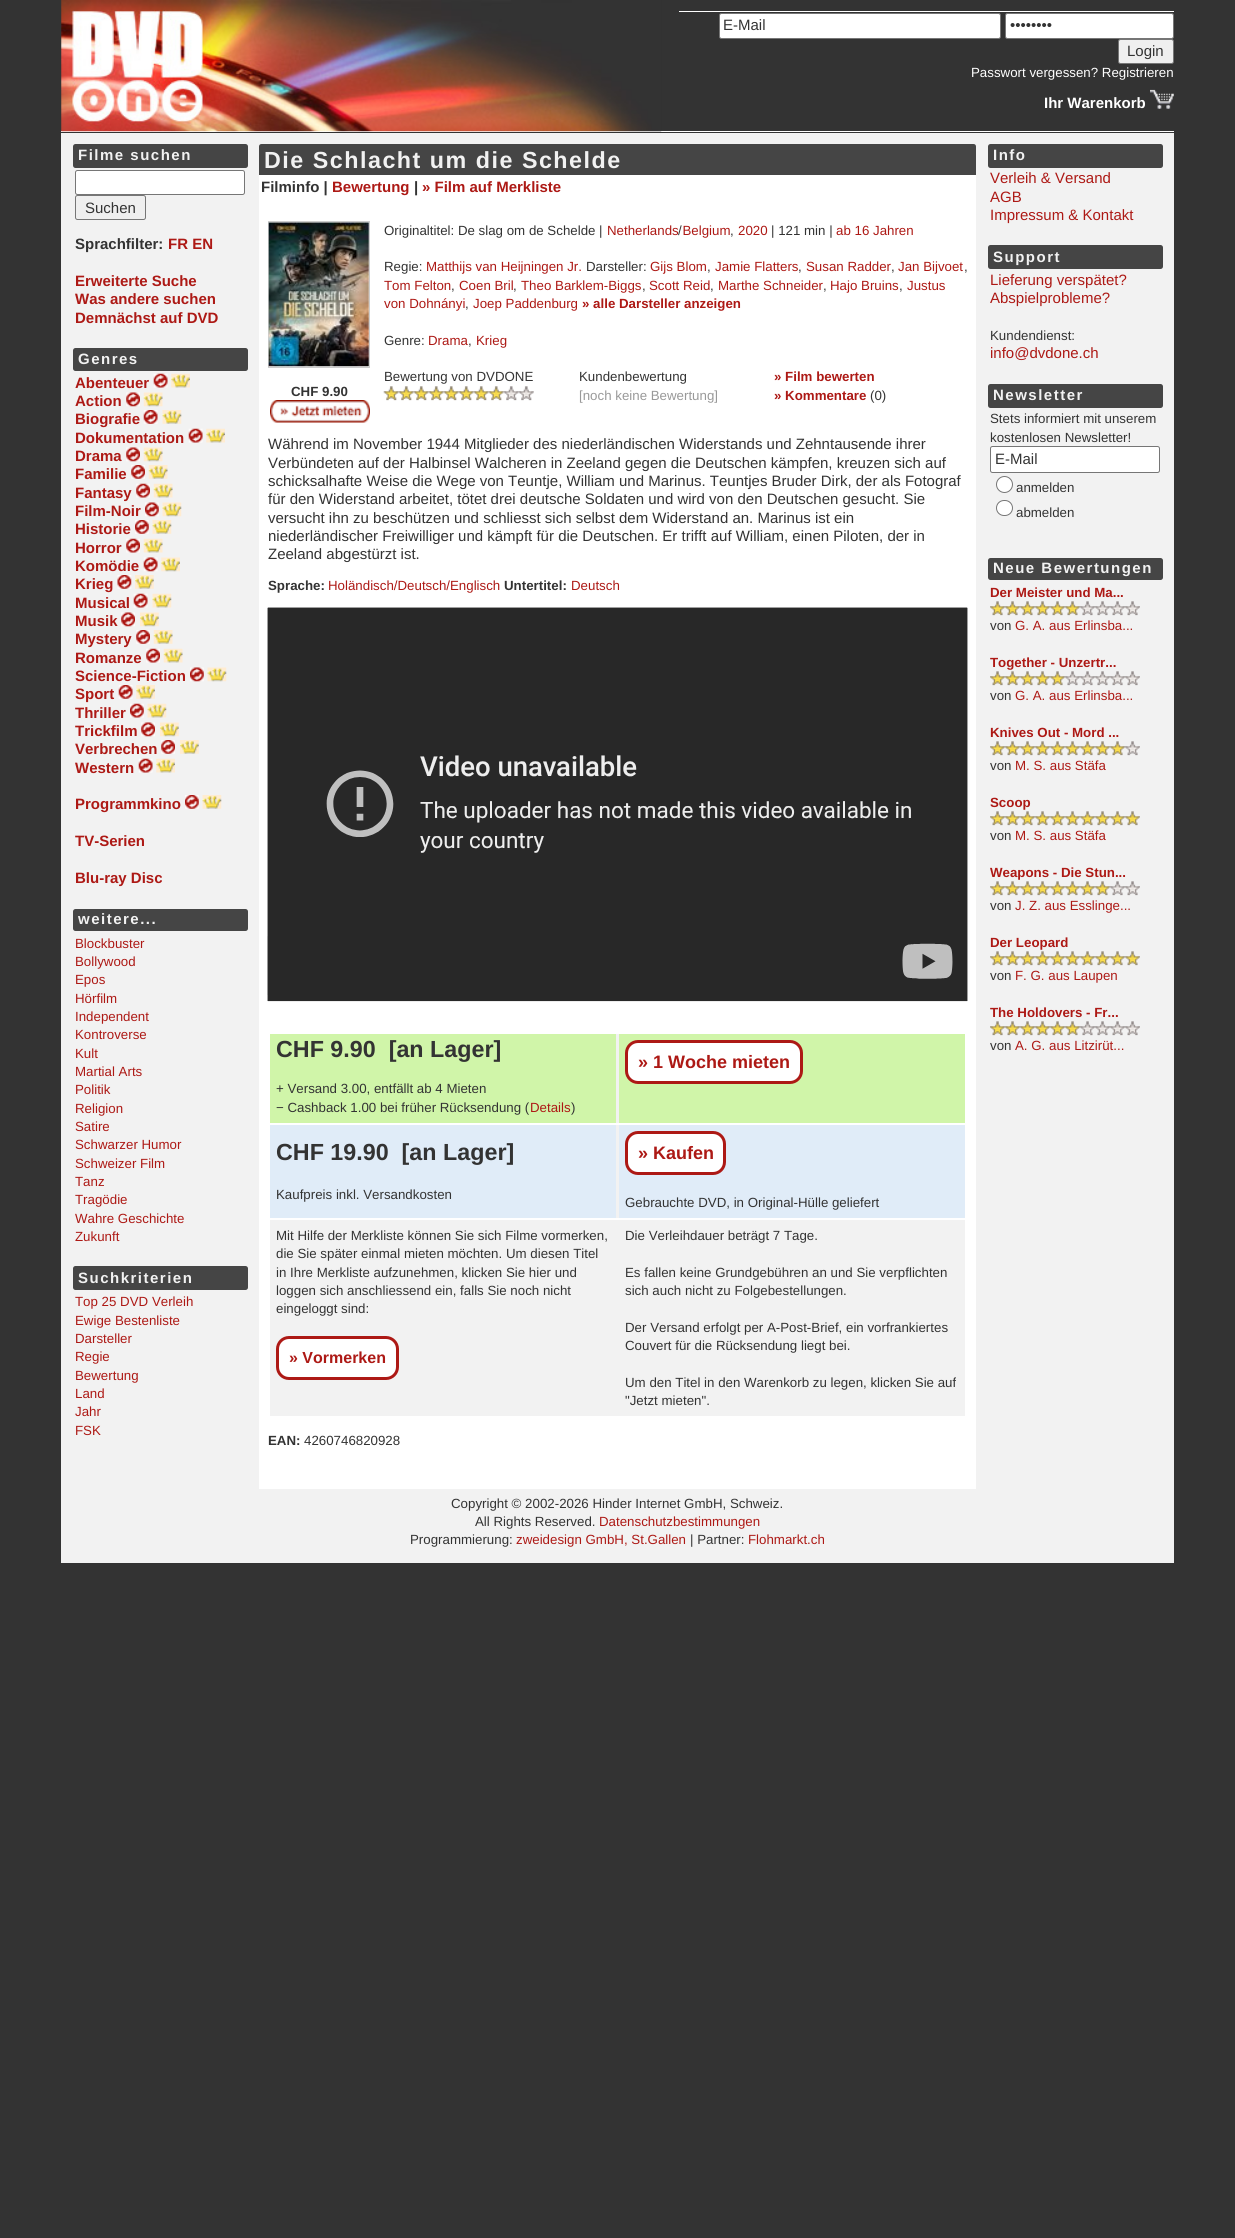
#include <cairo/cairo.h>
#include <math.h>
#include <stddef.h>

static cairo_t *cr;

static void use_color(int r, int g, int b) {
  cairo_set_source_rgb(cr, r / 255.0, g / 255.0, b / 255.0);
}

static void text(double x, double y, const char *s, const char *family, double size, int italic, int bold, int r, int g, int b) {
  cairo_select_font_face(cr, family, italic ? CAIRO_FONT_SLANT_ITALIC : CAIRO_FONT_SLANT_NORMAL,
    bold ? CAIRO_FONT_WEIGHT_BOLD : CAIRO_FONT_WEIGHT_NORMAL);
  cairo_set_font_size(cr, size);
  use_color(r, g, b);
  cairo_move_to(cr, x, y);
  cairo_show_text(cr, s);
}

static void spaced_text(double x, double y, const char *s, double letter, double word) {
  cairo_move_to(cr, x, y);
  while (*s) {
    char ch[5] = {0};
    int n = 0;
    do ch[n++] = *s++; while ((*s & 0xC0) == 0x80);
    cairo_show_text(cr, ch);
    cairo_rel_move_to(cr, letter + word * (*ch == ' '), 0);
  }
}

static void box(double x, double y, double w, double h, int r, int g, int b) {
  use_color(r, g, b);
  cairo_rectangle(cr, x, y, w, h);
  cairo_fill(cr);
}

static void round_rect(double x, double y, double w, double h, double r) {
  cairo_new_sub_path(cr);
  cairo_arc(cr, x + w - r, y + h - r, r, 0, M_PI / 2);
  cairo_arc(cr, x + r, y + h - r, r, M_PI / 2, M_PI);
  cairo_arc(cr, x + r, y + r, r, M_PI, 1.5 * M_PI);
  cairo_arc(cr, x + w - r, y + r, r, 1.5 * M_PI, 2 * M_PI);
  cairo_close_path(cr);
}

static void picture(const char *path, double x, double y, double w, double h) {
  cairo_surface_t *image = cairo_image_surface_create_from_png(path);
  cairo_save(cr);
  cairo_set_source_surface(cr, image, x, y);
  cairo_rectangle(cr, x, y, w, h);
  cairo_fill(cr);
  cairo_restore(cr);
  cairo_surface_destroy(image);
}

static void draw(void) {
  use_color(51, 51, 51);
  cairo_paint(cr);
  box(61, 131, 1113, 1, 255, 255, 255);
  picture("img_01.png", 61, 0, 601, 132);
  box(679, 11, 495, 1, 255, 255, 255);
  round_rect(719.5, 13.5, 281, 25, 2);
  cairo_fill_preserve(cr);
  use_color(118, 118, 118);
  cairo_set_line_width(cr, 1);
  cairo_stroke(cr);
  use_color(255, 255, 255);
  round_rect(1005.5, 13.5, 168, 25, 2);
  cairo_fill_preserve(cr);
  use_color(118, 118, 118);
  cairo_stroke(cr);
  use_color(239, 239, 239);
  round_rect(1118.5, 39.5, 55, 24, 2);
  cairo_fill_preserve(cr);
  use_color(118, 118, 118);
  cairo_stroke(cr);
  picture("img_02.png", 1150, 89, 24, 20);
  box(61, 133, 1113, 1430, 242, 242, 242);
  use_color(69, 69, 69);
  round_rect(73, 144, 175, 24, 2.5);
  cairo_fill(cr);
  use_color(255, 255, 255);
  round_rect(75.5, 170.5, 169, 24, 2);
  cairo_fill_preserve(cr);
  use_color(118, 118, 118);
  cairo_stroke(cr);
  use_color(239, 239, 239);
  round_rect(75.5, 195.5, 70, 24, 2);
  cairo_fill_preserve(cr);
  use_color(118, 118, 118);
  cairo_stroke(cr);
  use_color(69, 69, 69);
  round_rect(73, 348, 175, 23, 2.5);
  cairo_fill(cr);
  picture("img_03.png", 153, 373, 15, 15);
  picture("img_04.png", 171, 373, 19, 15);
  picture("img_05.png", 126, 392, 14, 15);
  picture("img_06.png", 143, 392, 20, 15);
  picture("img_07.png", 143, 410, 15, 14);
  picture("img_08.png", 162, 410, 20, 14);
  picture("img_09.png", 188, 428, 15, 15);
  picture("img_04.png", 206, 428, 19, 15);
  picture("img_05.png", 126, 447, 14, 15);
  picture("img_06.png", 143, 447, 20, 15);
  picture("img_10.png", 131, 465, 14, 14);
  picture("img_11.png", 148, 465, 20, 14);
  picture("img_12.png", 136, 483, 14, 15);
  picture("img_13.png", 153, 483, 20, 15);
  picture("img_14.png", 145, 502, 14, 15);
  picture("img_15.png", 162, 502, 20, 15);
  picture("img_16.png", 135, 520, 14, 14);
  picture("img_08.png", 152, 520, 20, 14);
  picture("img_12.png", 126, 538, 14, 15);
  picture("img_13.png", 143, 538, 20, 15);
  picture("img_17.png", 143, 557, 15, 15);
  picture("img_18.png", 161, 557, 19, 15);
  picture("img_19.png", 117, 575, 15, 14);
  picture("img_20.png", 135, 575, 19, 14);
  picture("img_03.png", 133, 593, 15, 15);
  picture("img_21.png", 152, 593, 20, 15);
  picture("img_05.png", 121, 612, 14, 15);
  picture("img_22.png", 140, 612, 19, 15);
  picture("img_10.png", 136, 630, 14, 14);
  picture("img_11.png", 153, 630, 20, 14);
  picture("img_12.png", 146, 648, 14, 15);
  picture("img_23.png", 163, 648, 20, 15);
  picture("img_14.png", 190, 667, 14, 15);
  picture("img_15.png", 207, 667, 20, 15);
  picture("img_07.png", 118, 685, 15, 14);
  picture("img_24.png", 136, 685, 19, 14);
  picture("img_25.png", 130, 703, 14, 15);
  picture("img_21.png", 147, 703, 20, 15);
  picture("img_05.png", 141, 722, 14, 15);
  picture("img_22.png", 160, 722, 19, 15);
  picture("img_10.png", 161, 740, 14, 14);
  picture("img_20.png", 180, 740, 19, 14);
  picture("img_03.png", 138, 758, 15, 15);
  picture("img_04.png", 156, 758, 19, 15);
  picture("img_16.png", 185, 795, 14, 14);
  picture("img_08.png", 202, 795, 20, 14);
  round_rect(73, 909, 175, 22, 2.5);
  cairo_fill(cr);
  round_rect(73, 1266, 175, 24, 2.5);
  cairo_fill(cr);
  cairo_new_path(cr);
  cairo_move_to(cr, 261.5, 144);
  cairo_line_to(cr, 973.5, 144);
  cairo_curve_to(cr, 975, 144, 976, 145, 976, 146.5);
  cairo_line_to(cr, 976, 175);
  cairo_line_to(cr, 259, 175);
  cairo_line_to(cr, 259, 146.5);
  cairo_curve_to(cr, 259, 145, 260, 144, 261.5, 144);
  cairo_close_path(cr);
  cairo_fill(cr);
  box(259, 175, 717, 1314, 255, 255, 255);
  cairo_rectangle(cr, 268.5, 221.5, 101, 146);
  use_color(204, 204, 204);
  cairo_stroke(cr);
  picture("img_26.png", 268, 222, 101, 145);
  picture("img_27.png", 270, 400, 100, 23);
  picture("img_28.png", 383, 386, 16, 15);
  picture("img_29.png", 398, 386, 16, 15);
  picture("img_30.png", 413, 386, 16, 15);
  picture("img_30.png", 428, 386, 16, 15);
  picture("img_30.png", 443, 386, 16, 15);
  picture("img_30.png", 458, 386, 16, 15);
  picture("img_30.png", 473, 386, 16, 15);
  picture("img_30.png", 488, 386, 16, 15);
  picture("img_31.png", 503, 386, 16, 15);
  picture("img_32.png", 518, 386, 16, 15);
  picture("img_33.png", 267, 607, 701, 395);
  box(616, 1034, 3, 89, 242, 242, 242);
  box(270, 1034, 346, 89, 208, 245, 169);
  box(619, 1034, 346, 89, 208, 245, 169);
  use_color(255, 255, 255);
  round_rect(626.5, 1041.5, 175, 41, 11.5);
  cairo_fill_preserve(cr);
  use_color(173, 25, 21);
  cairo_set_line_width(cr, 3);
  cairo_stroke(cr);
  box(616, 1125, 3, 93, 242, 242, 242);
  box(270, 1125, 346, 93, 224, 236, 248);
  box(619, 1125, 346, 93, 224, 236, 248);
  use_color(255, 255, 255);
  round_rect(626.5, 1132.5, 98, 41, 11.5);
  cairo_fill_preserve(cr);
  use_color(173, 25, 21);
  cairo_stroke(cr);
  box(270, 1220, 695, 196, 242, 242, 242);
  use_color(255, 255, 255);
  round_rect(277.5, 1337.5, 120, 41, 11.5);
  cairo_fill_preserve(cr);
  use_color(173, 25, 21);
  cairo_stroke(cr);
  use_color(69, 69, 69);
  round_rect(988, 144, 175, 24, 2.5);
  cairo_fill(cr);
  round_rect(988, 245, 175, 24, 2.5);
  cairo_fill(cr);
  round_rect(988, 384, 175, 24, 2.5);
  cairo_fill(cr);
  use_color(255, 255, 255);
  round_rect(990.5, 446.5, 169, 26, 2);
  cairo_fill_preserve(cr);
  use_color(118, 118, 118);
  cairo_set_line_width(cr, 1);
  cairo_stroke(cr);
  use_color(255, 255, 255);
  cairo_arc(cr, 1004.5, 484.5, 8, 0, 2 * M_PI);
  cairo_fill_preserve(cr);
  use_color(118, 118, 118);
  cairo_stroke(cr);
  use_color(255, 255, 255);
  round_rect(996.5, 500.5, 16, 15, 7.5);
  cairo_fill_preserve(cr);
  use_color(118, 118, 118);
  cairo_stroke(cr);
  use_color(69, 69, 69);
  round_rect(988, 558, 175, 22, 2.5);
  cairo_fill(cr);
  picture("img_34.png", 990, 601, 15, 15);
  picture("img_34.png", 1005, 601, 15, 15);
  picture("img_35.png", 1020, 601, 15, 15);
  picture("img_35.png", 1035, 601, 15, 15);
  picture("img_34.png", 1050, 601, 15, 15);
  picture("img_35.png", 1065, 601, 15, 15);
  picture("img_36.png", 1080, 601, 15, 15);
  picture("img_36.png", 1095, 601, 15, 15);
  picture("img_37.png", 1110, 601, 15, 15);
  picture("img_37.png", 1125, 601, 15, 15);
  picture("img_34.png", 990, 671, 15, 15);
  picture("img_34.png", 1005, 671, 15, 15);
  picture("img_35.png", 1020, 671, 15, 15);
  picture("img_35.png", 1035, 671, 15, 15);
  picture("img_34.png", 1050, 671, 15, 15);
  picture("img_36.png", 1065, 671, 15, 15);
  picture("img_36.png", 1080, 671, 15, 15);
  picture("img_36.png", 1095, 671, 15, 15);
  picture("img_37.png", 1110, 671, 15, 15);
  picture("img_37.png", 1125, 671, 15, 15);
  picture("img_34.png", 990, 741, 15, 15);
  picture("img_34.png", 1005, 741, 15, 15);
  picture("img_35.png", 1020, 741, 15, 15);
  picture("img_35.png", 1035, 741, 15, 15);
  picture("img_34.png", 1050, 741, 15, 15);
  picture("img_35.png", 1065, 741, 15, 15);
  picture("img_35.png", 1080, 741, 15, 15);
  picture("img_35.png", 1095, 741, 15, 15);
  picture("img_34.png", 1110, 741, 15, 15);
  picture("img_37.png", 1125, 741, 15, 15);
  picture("img_34.png", 990, 811, 15, 15);
  picture("img_34.png", 1005, 811, 15, 15);
  picture("img_35.png", 1020, 811, 15, 15);
  picture("img_35.png", 1035, 811, 15, 15);
  picture("img_34.png", 1050, 811, 15, 15);
  picture("img_35.png", 1065, 811, 15, 15);
  picture("img_35.png", 1080, 811, 15, 15);
  picture("img_35.png", 1095, 811, 15, 15);
  picture("img_34.png", 1110, 811, 15, 15);
  picture("img_34.png", 1125, 811, 15, 15);
  picture("img_34.png", 990, 881, 15, 15);
  picture("img_34.png", 1005, 881, 15, 15);
  picture("img_35.png", 1020, 881, 15, 15);
  picture("img_35.png", 1035, 881, 15, 15);
  picture("img_34.png", 1050, 881, 15, 15);
  picture("img_35.png", 1065, 881, 15, 15);
  picture("img_35.png", 1080, 881, 15, 15);
  picture("img_35.png", 1095, 881, 15, 15);
  picture("img_37.png", 1110, 881, 15, 15);
  picture("img_37.png", 1125, 881, 15, 15);
  picture("img_34.png", 990, 951, 15, 15);
  picture("img_34.png", 1005, 951, 15, 15);
  picture("img_35.png", 1020, 951, 15, 15);
  picture("img_35.png", 1035, 951, 15, 15);
  picture("img_34.png", 1050, 951, 15, 15);
  picture("img_35.png", 1065, 951, 15, 15);
  picture("img_35.png", 1080, 951, 15, 15);
  picture("img_35.png", 1095, 951, 15, 15);
  picture("img_34.png", 1110, 951, 15, 15);
  picture("img_34.png", 1125, 951, 15, 15);
  picture("img_38.png", 990, 1021, 15, 15);
  picture("img_38.png", 1005, 1021, 15, 15);
  picture("img_39.png", 1020, 1021, 15, 15);
  picture("img_39.png", 1035, 1021, 15, 15);
  picture("img_38.png", 1050, 1021, 15, 15);
  picture("img_39.png", 1065, 1021, 15, 15);
  picture("img_40.png", 1080, 1021, 15, 15);
  picture("img_40.png", 1095, 1021, 15, 15);
  picture("img_41.png", 1110, 1021, 15, 15);
  picture("img_41.png", 1125, 1021, 15, 15);
  text(723, 30, "E-Mail", "Liberation Sans", 15, 0, 0, 51, 51, 51);
  text(1010, 30, "••••••••", "Liberation Sans", 15, 0, 0, 51, 51, 51);
  text(1127, 56, "Login", "Liberation Sans", 15, 0, 0, 51, 51, 51);
  text(971, 77, "Passwort vergessen? Registrieren", "Liberation Sans", 13.3, 0, 0, 255, 255, 255);
  text(1044, 108, "Ihr Warenkorb", "Liberation Sans", 15, 0, 1, 255, 255, 255);
  use_color(242, 242, 242);
  spaced_text(78, 160, "Filme suchen", 1.5, 0);
  text(85, 213, "Suchen", "Liberation Sans", 15, 0, 0, 51, 51, 51);
  text(75, 249, "Sprachfilter:", "Liberation Sans", 15, 0, 1, 51, 51, 51);
  text(168, 249, "FR EN", "Liberation Sans", 15, 0, 1, 173, 25, 21);
  text(75, 286, "Erweiterte Suche", "Liberation Sans", 15, 0, 1, 173, 25, 21);
  text(75, 304, "Was andere suchen", "Liberation Sans", 15, 0, 1, 173, 25, 21);
  text(75, 323, "Demnächst auf DVD", "Liberation Sans", 15, 0, 1, 173, 25, 21);
  use_color(242, 242, 242);
  spaced_text(78, 364, "Genres", 1.5, 0);
  text(75, 388, "Abenteuer", "Liberation Sans", 15, 0, 1, 173, 25, 21);
  text(75, 406, "Action", "Liberation Sans", 15, 0, 1, 173, 25, 21);
  text(75, 424, "Biografie", "Liberation Sans", 15, 0, 1, 173, 25, 21);
  text(75, 443, "Dokumentation", "Liberation Sans", 15, 0, 1, 173, 25, 21);
  text(75, 461, "Drama", "Liberation Sans", 15, 0, 1, 173, 25, 21);
  text(75, 479, "Familie", "Liberation Sans", 15, 0, 1, 173, 25, 21);
  text(75, 498, "Fantasy", "Liberation Sans", 15, 0, 1, 173, 25, 21);
  text(75, 516, "Film-Noir", "Liberation Sans", 15, 0, 1, 173, 25, 21);
  text(75, 534, "Historie", "Liberation Sans", 15, 0, 1, 173, 25, 21);
  text(75, 553, "Horror", "Liberation Sans", 15, 0, 1, 173, 25, 21);
  text(75, 571, "Komödie", "Liberation Sans", 15, 0, 1, 173, 25, 21);
  text(75, 589, "Krieg", "Liberation Sans", 15, 0, 1, 173, 25, 21);
  text(75, 608, "Musical", "Liberation Sans", 15, 0, 1, 173, 25, 21);
  text(75, 626, "Musik", "Liberation Sans", 15, 0, 1, 173, 25, 21);
  text(75, 644, "Mystery", "Liberation Sans", 15, 0, 1, 173, 25, 21);
  text(75, 663, "Romanze", "Liberation Sans", 15, 0, 1, 173, 25, 21);
  text(75, 681, "Science-Fiction", "Liberation Sans", 15, 0, 1, 173, 25, 21);
  text(75, 699, "Sport", "Liberation Sans", 15, 0, 1, 173, 25, 21);
  text(75, 718, "Thriller", "Liberation Sans", 15, 0, 1, 173, 25, 21);
  text(75, 736, "Trickfilm", "Liberation Sans", 15, 0, 1, 173, 25, 21);
  text(75, 754, "Verbrechen", "Liberation Sans", 15, 0, 1, 173, 25, 21);
  text(75, 773, "Western", "Liberation Sans", 15, 0, 1, 173, 25, 21);
  text(75, 809, "Programmkino", "Liberation Sans", 15, 0, 1, 173, 25, 21);
  text(75, 846, "TV-Serien", "Liberation Sans", 15, 0, 1, 173, 25, 21);
  text(75, 883, "Blu-ray Disc", "Liberation Sans", 15, 0, 1, 173, 25, 21);
  use_color(242, 242, 242);
  spaced_text(78, 924, "weitere...", 1.5, 0);
  text(75, 948, "Blockbuster", "Liberation Sans", 13.3, 0, 0, 173, 25, 21);
  text(75, 966, "Bollywood", "Liberation Sans", 13.3, 0, 0, 173, 25, 21);
  text(75, 984, "Epos", "Liberation Sans", 13.3, 0, 0, 173, 25, 21);
  text(75, 1003, "Hörfilm", "Liberation Sans", 13.3, 0, 0, 173, 25, 21);
  text(75, 1021, "Independent", "Liberation Sans", 13.3, 0, 0, 173, 25, 21);
  text(75, 1039, "Kontroverse", "Liberation Sans", 13.3, 0, 0, 173, 25, 21);
  text(75, 1058, "Kult", "Liberation Sans", 13.3, 0, 0, 173, 25, 21);
  text(75, 1076, "Martial Arts", "Liberation Sans", 13.3, 0, 0, 173, 25, 21);
  text(75, 1094, "Politik", "Liberation Sans", 13.3, 0, 0, 173, 25, 21);
  text(75, 1113, "Religion", "Liberation Sans", 13.3, 0, 0, 173, 25, 21);
  text(75, 1131, "Satire", "Liberation Sans", 13.3, 0, 0, 173, 25, 21);
  text(75, 1149, "Schwarzer Humor", "Liberation Sans", 13.3, 0, 0, 173, 25, 21);
  text(75, 1168, "Schweizer Film", "Liberation Sans", 13.3, 0, 0, 173, 25, 21);
  text(75, 1186, "Tanz", "Liberation Sans", 13.3, 0, 0, 173, 25, 21);
  text(75, 1204, "Tragödie", "Liberation Sans", 13.3, 0, 0, 173, 25, 21);
  text(75, 1223, "Wahre Geschichte", "Liberation Sans", 13.3, 0, 0, 173, 25, 21);
  text(75, 1241, "Zukunft", "Liberation Sans", 13.3, 0, 0, 173, 25, 21);
  cairo_select_font_face(cr, "Liberation Sans", CAIRO_FONT_SLANT_NORMAL, CAIRO_FONT_WEIGHT_BOLD);
  cairo_set_font_size(cr, 15);
  use_color(242, 242, 242);
  spaced_text(78, 1283, "Suchkriterien", 1.5, 0);
  text(75, 1306, "Top 25 DVD Verleih", "Liberation Sans", 13.3, 0, 0, 173, 25, 21);
  text(75, 1325, "Ewige Bestenliste", "Liberation Sans", 13.3, 0, 0, 173, 25, 21);
  text(75, 1343, "Darsteller", "Liberation Sans", 13.3, 0, 0, 173, 25, 21);
  text(75, 1361, "Regie", "Liberation Sans", 13.3, 0, 0, 173, 25, 21);
  text(75, 1380, "Bewertung", "Liberation Sans", 13.3, 0, 0, 173, 25, 21);
  text(75, 1398, "Land", "Liberation Sans", 13.3, 0, 0, 173, 25, 21);
  text(75, 1416, "Jahr", "Liberation Sans", 13.3, 0, 0, 173, 25, 21);
  text(75, 1435, "FSK", "Liberation Sans", 13.3, 0, 0, 173, 25, 21);
  cairo_select_font_face(cr, "Liberation Sans", CAIRO_FONT_SLANT_NORMAL, CAIRO_FONT_WEIGHT_BOLD);
  cairo_set_font_size(cr, 23.3);
  use_color(242, 242, 242);
  spaced_text(264, 168, "Die Schlacht um die Schelde", 1.5, 0);
  text(261, 192, "Filminfo |", "Liberation Sans", 15, 0, 1, 51, 51, 51);
  text(332, 192, "Bewertung", "Liberation Sans", 15, 0, 1, 173, 25, 21);
  text(414, 192, "|", "Liberation Sans", 15, 0, 1, 51, 51, 51);
  text(422, 192, "» Film auf Merkliste", "Liberation Sans", 15, 0, 1, 173, 25, 21);
  text(291, 396, "CHF 9.90", "Liberation Sans", 13.3, 0, 1, 51, 51, 51);
  text(384, 235, "Originaltitel: De slag om de Schelde |", "Liberation Sans", 13.3, 0, 0, 51, 51, 51);
  text(607, 235, "Netherlands Belgium", "Liberation Sans", 13.3, 0, 0, 173, 25, 21);
  text(678, 235, "/", "Liberation Sans", 13.3, 0, 0, 51, 51, 51);
  text(730, 235, ",", "Liberation Sans", 13.3, 0, 0, 51, 51, 51);
  text(738, 235, "2020", "Liberation Sans", 13.3, 0, 0, 173, 25, 21);
  text(771, 235, "| 121 min |", "Liberation Sans", 13.3, 0, 0, 51, 51, 51);
  text(836, 235, "ab 16 Jahren", "Liberation Sans", 13.3, 0, 0, 173, 25, 21);
  text(384, 271, "Regie:", "Liberation Sans", 13.3, 0, 0, 51, 51, 51);
  text(426, 271, "Matthijs van Heijningen Jr.", "Liberation Sans", 13.3, 0, 0, 173, 25, 21);
  text(586, 271, "Darsteller:", "Liberation Sans", 13.3, 0, 0, 51, 51, 51);
  text(650, 271, "Gijs Blom", "Liberation Sans", 13.3, 0, 0, 173, 25, 21);
  text(707, 271, ",", "Liberation Sans", 13.3, 0, 0, 51, 51, 51);
  text(715, 271, "Jamie Flatters", "Liberation Sans", 13.3, 0, 0, 173, 25, 21);
  text(798, 271, ",", "Liberation Sans", 13.3, 0, 0, 51, 51, 51);
  text(806, 271, "Susan Radder", "Liberation Sans", 13.3, 0, 0, 173, 25, 21);
  text(891, 271, ",", "Liberation Sans", 13.3, 0, 0, 51, 51, 51);
  text(898, 271, "Jan Bijvoet", "Liberation Sans", 13.3, 0, 0, 173, 25, 21);
  text(964, 271, ",", "Liberation Sans", 13.3, 0, 0, 51, 51, 51);
  text(384, 290, "Tom Felton", "Liberation Sans", 13.3, 0, 0, 173, 25, 21);
  text(451, 290, ",", "Liberation Sans", 13.3, 0, 0, 51, 51, 51);
  text(459, 290, "Coen Bril", "Liberation Sans", 13.3, 0, 0, 173, 25, 21);
  text(513, 290, ",", "Liberation Sans", 13.3, 0, 0, 51, 51, 51);
  text(521, 290, "Theo Barklem-Biggs", "Liberation Sans", 13.3, 0, 0, 173, 25, 21);
  text(642, 290, ",", "Liberation Sans", 13.3, 0, 0, 51, 51, 51);
  text(649, 290, "Scott Reid", "Liberation Sans", 13.3, 0, 0, 173, 25, 21);
  text(710, 290, ",", "Liberation Sans", 13.3, 0, 0, 51, 51, 51);
  text(718, 290, "Marthe Schneider", "Liberation Sans", 13.3, 0, 0, 173, 25, 21);
  text(823, 290, ",", "Liberation Sans", 13.3, 0, 0, 51, 51, 51);
  text(830, 290, "Hajo Bruins", "Liberation Sans", 13.3, 0, 0, 173, 25, 21);
  text(899, 290, ",", "Liberation Sans", 13.3, 0, 0, 51, 51, 51);
  text(907, 290, "Justus", "Liberation Sans", 13.3, 0, 0, 173, 25, 21);
  text(384, 308, "von Dohnányi", "Liberation Sans", 13.3, 0, 0, 173, 25, 21);
  text(465, 308, ",", "Liberation Sans", 13.3, 0, 0, 51, 51, 51);
  text(473, 308, "Joep Paddenburg", "Liberation Sans", 13.3, 0, 0, 173, 25, 21);
  text(582, 308, "» alle Darsteller anzeigen", "Liberation Sans", 13.3, 0, 1, 173, 25, 21);
  text(384, 345, "Genre:", "Liberation Sans", 13.3, 0, 0, 51, 51, 51);
  text(428, 345, "Drama", "Liberation Sans", 13.3, 0, 0, 173, 25, 21);
  text(468, 345, ",", "Liberation Sans", 13.3, 0, 0, 51, 51, 51);
  text(476, 345, "Krieg", "Liberation Sans", 13.3, 0, 0, 173, 25, 21);
  text(384, 381, "Bewertung von DVDONE", "Liberation Sans", 13.3, 0, 0, 51, 51, 51);
  text(579, 381, "Kundenbewertung", "Liberation Sans", 13.3, 0, 0, 51, 51, 51);
  text(579, 400, "[noch keine Bewertung]", "Liberation Sans", 13.3, 0, 0, 153, 153, 153);
  text(774, 381, "» Film bewerten", "Liberation Sans", 13.3, 0, 1, 173, 25, 21);
  text(774, 400, "» Kommentare", "Liberation Sans", 13.3, 0, 1, 173, 25, 21);
  text(870, 400, "(0)", "Liberation Sans", 13.3, 0, 0, 51, 51, 51);
  text(268, 449, "Während im November 1944 Mitglieder des niederländischen Widerstands und Zehntausende ihrer", "Liberation Sans", 15, 0, 0, 51, 51, 51);
  text(268, 468, "Verbündeten auf der Halbinsel Walcheren in Zeeland gegen die Deutschen kämpfen, kreuzen sich auf", "Liberation Sans", 15, 0, 0, 51, 51, 51);
  text(268, 486, "schicksalhafte Weise die Wege von Teuntje, William und Marinus. Teuntjes Bruder Dirk, der als Fotograf", "Liberation Sans", 15, 0, 0, 51, 51, 51);
  text(268, 504, "für den Widerstand arbeitet, tötet drei deutsche Soldaten und wird von den Deutschen gesucht. Sie", "Liberation Sans", 15, 0, 0, 51, 51, 51);
  text(268, 523, "versucht ihn zu beschützen und schliesst sich selbst dem Widerstand an. Marinus ist ein", "Liberation Sans", 15, 0, 0, 51, 51, 51);
  text(268, 541, "niederländischer Freiwilliger und kämpft für die Deutschen. Er trifft auf William, einen Piloten, der in", "Liberation Sans", 15, 0, 0, 51, 51, 51);
  text(268, 559, "Zeeland abgestürzt ist.", "Liberation Sans", 15, 0, 0, 51, 51, 51);
  text(268, 590, "Sprache:", "Liberation Sans", 13.3, 0, 1, 51, 51, 51);
  text(328, 590, "Holändisch/Deutsch/Englisch", "Liberation Sans", 13.3, 0, 0, 173, 25, 21);
  text(504, 590, "Untertitel:", "Liberation Sans", 13.3, 0, 1, 51, 51, 51);
  text(571, 590, "Deutsch", "Liberation Sans", 13.3, 0, 0, 173, 25, 21);
  text(276, 1057, "CHF 9.90  [an Lager]", "Liberation Sans", 23.3, 0, 1, 51, 51, 51);
  text(276, 1093, "+ Versand 3.00, entfällt ab 4 Mieten", "Liberation Sans", 13.3, 0, 0, 51, 51, 51);
  text(276, 1112, "− Cashback 1.00 bei früher Rücksendung (", "Liberation Sans", 13.3, 0, 0, 51, 51, 51);
  text(530, 1112, "Details", "Liberation Sans", 13.3, 0, 0, 173, 25, 21);
  text(571, 1112, ")", "Liberation Sans", 13.3, 0, 0, 51, 51, 51);
  text(638, 1068, "» 1 Woche mieten", "Liberation Sans", 18, 0, 1, 173, 25, 21);
  text(276, 1160, "CHF 19.90  [an Lager]", "Liberation Sans", 23.3, 0, 1, 51, 51, 51);
  text(276, 1199, "Kaufpreis inkl. Versandkosten", "Liberation Sans", 13.3, 0, 0, 51, 51, 51);
  text(638, 1159, "» Kaufen", "Liberation Sans", 18, 0, 1, 173, 25, 21);
  text(625, 1207, "Gebrauchte DVD, in Original-Hülle geliefert", "Liberation Sans", 13.3, 0, 0, 51, 51, 51);
  text(276, 1240, "Mit Hilfe der Merkliste können Sie sich Filme vormerken,", "Liberation Sans", 13.3, 0, 0, 51, 51, 51);
  text(276, 1258, "die Sie später einmal mieten möchten. Um diesen Titel", "Liberation Sans", 13.3, 0, 0, 51, 51, 51);
  text(276, 1277, "in Ihre Merkliste aufzunehmen, klicken Sie hier und", "Liberation Sans", 13.3, 0, 0, 51, 51, 51);
  text(276, 1295, "loggen sich anschliessend ein, falls Sie noch nicht", "Liberation Sans", 13.3, 0, 0, 51, 51, 51);
  text(276, 1313, "eingeloggt sind:", "Liberation Sans", 13.3, 0, 0, 51, 51, 51);
  text(289, 1363, "» Vormerken", "Liberation Sans", 16, 0, 1, 173, 25, 21);
  text(625, 1240, "Die Verleihdauer beträgt 7 Tage.", "Liberation Sans", 13.3, 0, 0, 51, 51, 51);
  text(625, 1277, "Es fallen keine Grundgebühren an und Sie verpflichten", "Liberation Sans", 13.3, 0, 0, 51, 51, 51);
  text(625, 1295, "sich auch nicht zu Folgebestellungen.", "Liberation Sans", 13.3, 0, 0, 51, 51, 51);
  text(625, 1332, "Der Versand erfolgt per A-Post-Brief, ein vorfrankiertes", "Liberation Sans", 13.3, 0, 0, 51, 51, 51);
  text(625, 1350, "Couvert für die Rücksendung liegt bei.", "Liberation Sans", 13.3, 0, 0, 51, 51, 51);
  text(625, 1387, "Um den Titel in den Warenkorb zu legen, klicken Sie auf", "Liberation Sans", 13.3, 0, 0, 51, 51, 51);
  text(625, 1405, "\"Jetzt mieten\".", "Liberation Sans", 13.3, 0, 0, 51, 51, 51);
  text(268, 1445, "EAN:", "Liberation Sans", 13.3, 0, 1, 51, 51, 51);
  text(304, 1445, "4260746820928", "Liberation Sans", 13.3, 0, 0, 51, 51, 51);
  text(451, 1508, "Copyright © 2002-2026 Hinder Internet GmbH, Schweiz.", "Liberation Sans", 13.3, 0, 0, 51, 51, 51);
  text(475, 1526, "All Rights Reserved.", "Liberation Sans", 13.3, 0, 0, 51, 51, 51);
  text(599, 1526, "Datenschutzbestimmungen", "Liberation Sans", 13.3, 0, 0, 173, 25, 21);
  text(410, 1544, "Programmierung:", "Liberation Sans", 13.3, 0, 0, 51, 51, 51);
  text(516, 1544, "zweidesign GmbH, St.Gallen", "Liberation Sans", 13.3, 0, 0, 173, 25, 21);
  text(690, 1544, "| Partner:", "Liberation Sans", 13.3, 0, 0, 51, 51, 51);
  text(748, 1544, "Flohmarkt.ch", "Liberation Sans", 13.3, 0, 0, 173, 25, 21);
  cairo_select_font_face(cr, "Liberation Sans", CAIRO_FONT_SLANT_NORMAL, CAIRO_FONT_WEIGHT_BOLD);
  cairo_set_font_size(cr, 15);
  use_color(242, 242, 242);
  spaced_text(993, 160, "Info", 1.5, 0);
  text(990, 183, "Verleih & Versand", "Liberation Sans", 15, 0, 0, 173, 25, 21);
  text(990, 202, "AGB", "Liberation Sans", 15, 0, 0, 173, 25, 21);
  text(990, 220, "Impressum & Kontakt", "Liberation Sans", 15, 0, 0, 173, 25, 21);
  cairo_select_font_face(cr, "Liberation Sans", CAIRO_FONT_SLANT_NORMAL, CAIRO_FONT_WEIGHT_BOLD);
  use_color(242, 242, 242);
  spaced_text(993, 262, "Support", 1.5, 0);
  text(990, 285, "Lieferung verspätet?", "Liberation Sans", 15, 0, 0, 173, 25, 21);
  text(990, 303, "Abspielprobleme?", "Liberation Sans", 15, 0, 0, 173, 25, 21);
  text(990, 340, "Kundendienst:", "Liberation Sans", 13.3, 0, 0, 51, 51, 51);
  text(990, 358, "info@dvdone.ch", "Liberation Sans", 15, 0, 0, 173, 25, 21);
  cairo_select_font_face(cr, "Liberation Sans", CAIRO_FONT_SLANT_NORMAL, CAIRO_FONT_WEIGHT_BOLD);
  use_color(242, 242, 242);
  spaced_text(993, 400, "Newsletter", 1.5, 0);
  text(990, 423, "Stets informiert mit unserem", "Liberation Sans", 13.3, 0, 0, 51, 51, 51);
  text(990, 442, "kostenlosen Newsletter!", "Liberation Sans", 13.3, 0, 0, 51, 51, 51);
  text(995, 464, "E-Mail", "Liberation Sans", 15, 0, 0, 51, 51, 51);
  text(1016, 492, "anmelden", "Liberation Sans", 13.3, 0, 0, 51, 51, 51);
  text(1016, 517, "abmelden", "Liberation Sans", 13.3, 0, 0, 51, 51, 51);
  cairo_select_font_face(cr, "Liberation Sans", CAIRO_FONT_SLANT_NORMAL, CAIRO_FONT_WEIGHT_BOLD);
  cairo_set_font_size(cr, 15);
  use_color(242, 242, 242);
  spaced_text(993, 573, "Neue Bewertungen", 1.5, 0);
  text(990, 597, "Der Meister und Ma...", "Liberation Sans", 13.3, 0, 1, 173, 25, 21);
  text(990, 630, "von", "Liberation Sans", 13.3, 0, 0, 51, 51, 51);
  text(1015, 630, "G. A. aus Erlinsba...", "Liberation Sans", 13.3, 0, 0, 173, 25, 21);
  text(990, 667, "Together - Unzertr...", "Liberation Sans", 13.3, 0, 1, 173, 25, 21);
  text(990, 700, "von", "Liberation Sans", 13.3, 0, 0, 51, 51, 51);
  text(1015, 700, "G. A. aus Erlinsba...", "Liberation Sans", 13.3, 0, 0, 173, 25, 21);
  text(990, 737, "Knives Out - Mord ...", "Liberation Sans", 13.3, 0, 1, 173, 25, 21);
  text(990, 770, "von", "Liberation Sans", 13.3, 0, 0, 51, 51, 51);
  text(1015, 770, "M. S. aus Stäfa", "Liberation Sans", 13.3, 0, 0, 173, 25, 21);
  text(990, 807, "Scoop", "Liberation Sans", 13.3, 0, 1, 173, 25, 21);
  text(990, 840, "von", "Liberation Sans", 13.3, 0, 0, 51, 51, 51);
  text(1015, 840, "M. S. aus Stäfa", "Liberation Sans", 13.3, 0, 0, 173, 25, 21);
  text(990, 877, "Weapons - Die Stun...", "Liberation Sans", 13.3, 0, 1, 173, 25, 21);
  text(990, 910, "von", "Liberation Sans", 13.3, 0, 0, 51, 51, 51);
  text(1015, 910, "J. Z. aus Esslinge...", "Liberation Sans", 13.3, 0, 0, 173, 25, 21);
  text(990, 947, "Der Leopard", "Liberation Sans", 13.3, 0, 1, 173, 25, 21);
  text(990, 980, "von", "Liberation Sans", 13.3, 0, 0, 51, 51, 51);
  text(1015, 980, "F. G. aus Laupen", "Liberation Sans", 13.3, 0, 0, 173, 25, 21);
  text(990, 1017, "The Holdovers - Fr...", "Liberation Sans", 13.3, 0, 1, 173, 25, 21);
  text(990, 1050, "von", "Liberation Sans", 13.3, 0, 0, 51, 51, 51);
  text(1015, 1050, "A. G. aus Litzirüt...", "Liberation Sans", 13.3, 0, 0, 173, 25, 21);
}

int main(void) {
  cairo_surface_t *surface = cairo_image_surface_create(CAIRO_FORMAT_RGB24, 1235, 2238);
  cr = cairo_create(surface);
  cairo_font_options_t *options = cairo_font_options_create();
  cairo_font_options_set_hint_metrics(options, CAIRO_HINT_METRICS_OFF);
  cairo_font_options_set_hint_style(options, CAIRO_HINT_STYLE_NONE);
  cairo_set_font_options(cr, options);
  cairo_set_miter_limit(cr, 4);
  draw();
  cairo_surface_write_to_png(surface, "out.png");
  cairo_font_options_destroy(options);
  cairo_destroy(cr);
  cairo_surface_destroy(surface);
  return 0;
}
